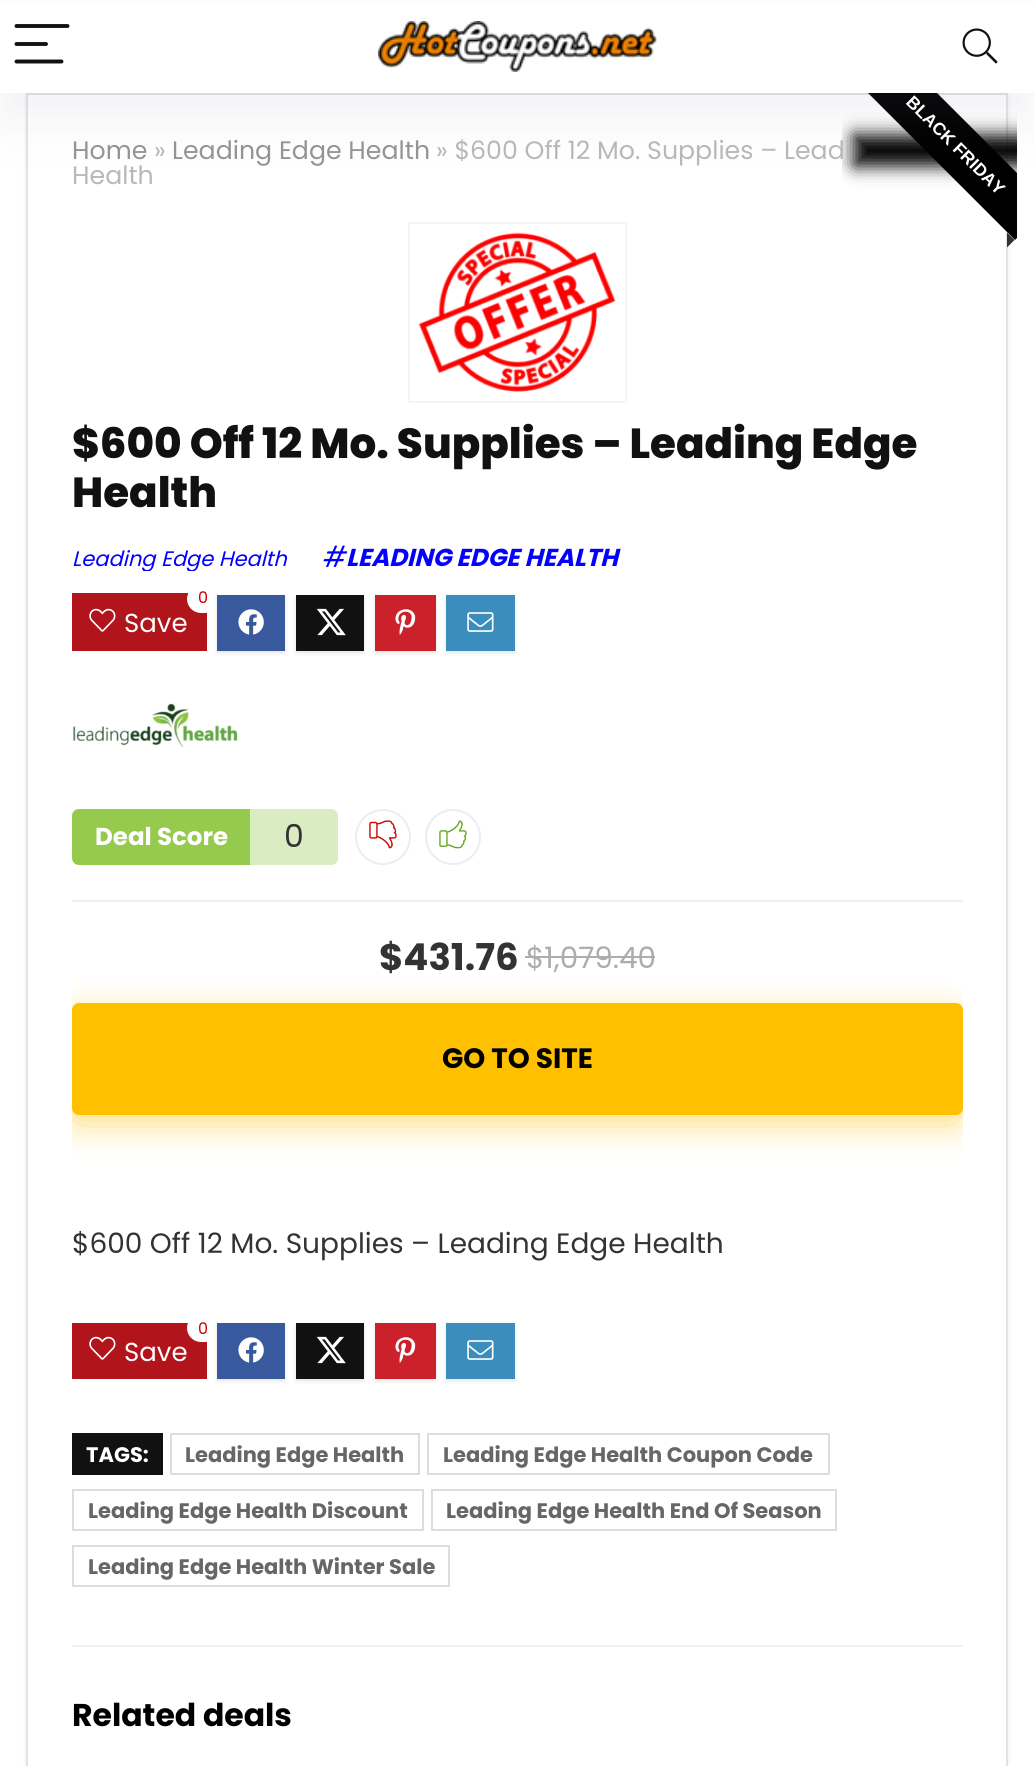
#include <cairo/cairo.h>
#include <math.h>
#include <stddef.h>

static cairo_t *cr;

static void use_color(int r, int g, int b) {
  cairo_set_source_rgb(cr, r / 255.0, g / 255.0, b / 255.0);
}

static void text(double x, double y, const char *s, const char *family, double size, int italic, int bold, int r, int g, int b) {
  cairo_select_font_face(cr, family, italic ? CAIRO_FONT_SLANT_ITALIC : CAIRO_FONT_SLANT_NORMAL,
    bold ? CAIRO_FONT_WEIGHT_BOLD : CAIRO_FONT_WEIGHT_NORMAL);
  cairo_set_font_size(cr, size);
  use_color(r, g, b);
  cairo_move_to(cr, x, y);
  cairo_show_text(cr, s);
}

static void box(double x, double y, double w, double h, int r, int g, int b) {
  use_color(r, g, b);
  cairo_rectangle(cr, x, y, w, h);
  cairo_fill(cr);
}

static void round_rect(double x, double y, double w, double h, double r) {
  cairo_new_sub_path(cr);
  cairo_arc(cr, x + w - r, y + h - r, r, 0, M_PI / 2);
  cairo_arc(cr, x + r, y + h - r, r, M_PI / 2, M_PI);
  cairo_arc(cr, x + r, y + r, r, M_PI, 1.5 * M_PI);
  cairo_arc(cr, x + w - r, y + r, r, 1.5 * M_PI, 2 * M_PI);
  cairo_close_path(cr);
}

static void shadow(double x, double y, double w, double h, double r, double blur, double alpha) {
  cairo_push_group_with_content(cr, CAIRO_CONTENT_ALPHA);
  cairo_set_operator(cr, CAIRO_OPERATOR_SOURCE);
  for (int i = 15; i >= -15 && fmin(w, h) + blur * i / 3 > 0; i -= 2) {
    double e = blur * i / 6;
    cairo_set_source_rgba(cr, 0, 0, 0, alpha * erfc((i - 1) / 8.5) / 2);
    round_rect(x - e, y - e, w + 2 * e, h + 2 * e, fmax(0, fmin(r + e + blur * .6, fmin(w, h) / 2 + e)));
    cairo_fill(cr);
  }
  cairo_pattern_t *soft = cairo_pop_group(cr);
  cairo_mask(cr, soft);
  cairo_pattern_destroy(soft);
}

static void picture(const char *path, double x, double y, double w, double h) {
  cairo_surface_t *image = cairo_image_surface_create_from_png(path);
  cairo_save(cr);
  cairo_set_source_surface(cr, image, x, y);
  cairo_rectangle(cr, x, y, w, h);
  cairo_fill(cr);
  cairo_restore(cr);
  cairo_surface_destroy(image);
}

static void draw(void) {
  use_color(255, 255, 255);
  cairo_paint(cr);
  use_color(236, 236, 236);
  shadow(26, 96, 982, 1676, 0, 2, 1);
  use_color(255, 255, 255);
  cairo_rectangle(cr, 27, 94, 980, 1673);
  cairo_fill_preserve(cr);
  use_color(227, 227, 227);
  cairo_stroke(cr);
  cairo_save(cr);
  cairo_rectangle(cr, 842, 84, 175, 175);
  cairo_clip(cr);
  use_color(0, 0, 0);
  shadow(854, 135, 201, 31, 0, 9, 1);
  cairo_restore(cr);
  cairo_save(cr);
  cairo_rectangle(cr, 842, 84, 175, 175);
  cairo_clip(cr);
  use_color(0, 0, 0);
  cairo_new_path(cr);
  cairo_move_to(cr, 895, 51);
  cairo_line_to(cr, 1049, 205);
  cairo_line_to(cr, 1015, 240);
  cairo_line_to(cr, 860, 85);
  cairo_close_path(cr);
  cairo_fill(cr);
  cairo_restore(cr);
  use_color(119, 123, 146);
  shadow(0, 26, 1034, 93, 0, 26, 0.1);
  box(0, 3, 1034, 90, 255, 255, 255);
  cairo_new_path(cr);
  cairo_move_to(cr, 16.5, 26);
  cairo_line_to(cr, 67.5, 26);
  cairo_move_to(cr, 16.5, 44);
  cairo_line_to(cr, 46, 44);
  cairo_move_to(cr, 16.5, 61.5);
  cairo_line_to(cr, 61.5, 61.5);
  use_color(17, 17, 17);
  cairo_set_line_width(cr, 3.9);
  cairo_set_line_cap(cr, CAIRO_LINE_CAP_ROUND);
  cairo_stroke(cr);
  picture("img_01.png", 378, 21, 279, 51);
  picture("img_02.png", 962, 28, 36, 36);
  use_color(51, 51, 51);
  cairo_new_path(cr);
  cairo_move_to(cr, 1007, 232.5);
  cairo_line_to(cr, 1014.5, 240);
  cairo_line_to(cr, 1007, 240);
  cairo_close_path(cr);
  cairo_move_to(cr, 1014.5, 240);
  cairo_line_to(cr, 1007, 247.5);
  cairo_line_to(cr, 1007, 240);
  cairo_close_path(cr);
  cairo_fill(cr);
  cairo_rectangle(cr, 409, 223, 217, 179);
  use_color(244, 244, 244);
  cairo_set_line_width(cr, 2);
  cairo_set_line_cap(cr, CAIRO_LINE_CAP_BUTT);
  cairo_stroke(cr);
  picture("img_03.png", 418, 232, 198, 160);
  picture("img_04.png", 323, 545, 25, 22);
  box(72, 593, 135, 58, 177, 20, 26);
  cairo_save(cr);
  cairo_rectangle(cr, 72, 588, 856, 74);
  cairo_clip(cr);
  use_color(255, 255, 255);
  round_rect(187, 585, 32, 28, 14);
  cairo_fill(cr);
  cairo_restore(cr);
  picture("img_05.png", 89, 608, 27, 24);
  use_color(228, 228, 228);
  shadow(217, 597, 68, 56, 0, 2, 1);
  box(217, 595, 68, 56, 57, 89, 159);
  picture("img_06.png", 238, 609, 26, 26);
  use_color(228, 228, 228);
  shadow(296, 597, 68, 56, 0, 2, 1);
  box(296, 595, 68, 56, 17, 17, 17);
  picture("img_07.png", 316, 608, 30, 28);
  use_color(228, 228, 228);
  shadow(375, 597, 61, 56, 0, 2, 1);
  box(375, 595, 61, 56, 202, 33, 42);
  picture("img_08.png", 395, 609, 21, 26);
  use_color(228, 228, 228);
  shadow(446, 597, 69, 56, 0, 2, 1);
  box(446, 595, 69, 56, 59, 141, 189);
  picture("img_09.png", 467, 612, 27, 20);
  picture("img_10.png", 72, 703, 166, 45);
  use_color(150, 202, 78);
  cairo_new_path(cr);
  cairo_move_to(cr, 79, 809);
  cairo_line_to(cr, 250, 809);
  cairo_line_to(cr, 250, 865);
  cairo_line_to(cr, 79, 865);
  cairo_curve_to(cr, 75, 865, 72, 862, 72, 858);
  cairo_line_to(cr, 72, 816);
  cairo_curve_to(cr, 72, 812, 75, 809, 79, 809);
  cairo_close_path(cr);
  cairo_fill(cr);
  use_color(218, 236, 194);
  cairo_new_path(cr);
  cairo_move_to(cr, 250, 809);
  cairo_line_to(cr, 331, 809);
  cairo_curve_to(cr, 335, 809, 338, 812, 338, 816);
  cairo_line_to(cr, 338, 858);
  cairo_curve_to(cr, 338, 862, 335, 865, 331, 865);
  cairo_line_to(cr, 250, 865);
  cairo_close_path(cr);
  cairo_fill(cr);
  cairo_arc(cr, 383, 837, 27, 0, 2 * M_PI);
  use_color(237, 237, 237);
  cairo_stroke(cr);
  picture("img_11.png", 369, 820, 28, 29);
  cairo_arc(cr, 453, 837, 27, 0, 2 * M_PI);
  cairo_stroke(cr);
  picture("img_12.png", 439, 820, 28, 29);
  box(72, 900, 891, 2, 238, 238, 238);
  box(525, 956, 130, 2, 173, 173, 173);
  cairo_save(cr);
  cairo_rectangle(cr, 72, 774, 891, 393);
  cairo_clip(cr);
  use_color(255, 192, 0);
  shadow(70, 1013, 891, 112, 7, 16.5, 0.5);
  cairo_restore(cr);
  use_color(255, 192, 0);
  round_rect(72, 1003, 891, 112, 7);
  cairo_fill(cr);
  box(72, 1323, 135, 56, 177, 20, 26);
  use_color(255, 255, 255);
  round_rect(187, 1314, 32, 28, 14);
  cairo_fill(cr);
  picture("img_05.png", 89, 1336, 27, 24);
  use_color(228, 228, 228);
  shadow(217, 1325, 68, 56, 0, 2, 1);
  box(217, 1323, 68, 56, 57, 89, 159);
  picture("img_06.png", 238, 1337, 26, 26);
  use_color(228, 228, 228);
  shadow(296, 1325, 68, 56, 0, 2, 1);
  box(296, 1323, 68, 56, 17, 17, 17);
  picture("img_07.png", 316, 1336, 30, 28);
  use_color(228, 228, 228);
  shadow(375, 1325, 61, 56, 0, 2, 1);
  box(375, 1323, 61, 56, 202, 33, 42);
  picture("img_08.png", 395, 1337, 21, 26);
  use_color(228, 228, 228);
  shadow(446, 1325, 69, 56, 0, 2, 1);
  box(446, 1323, 69, 56, 59, 141, 189);
  picture("img_09.png", 467, 1340, 27, 20);
  box(72, 1433, 91, 42, 17, 17, 17);
  cairo_rectangle(cr, 171, 1434, 248, 40);
  use_color(221, 221, 221);
  cairo_stroke(cr);
  cairo_rectangle(cr, 428, 1434, 401, 40);
  cairo_stroke(cr);
  cairo_rectangle(cr, 73, 1490, 350, 40);
  cairo_stroke(cr);
  cairo_rectangle(cr, 432, 1490, 404, 40);
  cairo_stroke(cr);
  cairo_rectangle(cr, 73, 1546, 376, 40);
  cairo_stroke(cr);
  box(72, 1645, 891, 2, 240, 240, 240);
  cairo_save(cr);
  cairo_translate(cr, 905, 103);
  cairo_rotate(cr, 45 * M_PI / 180);
  text(0, 0, "BLACK FRIDAY", "Liberation Sans", 17.5, 0, 1, 255, 255, 255);
  cairo_restore(cr);
  text(72, 458, "$600 Off 12 Mo. Supplies – Leading Edge", "Poppins ExtraBold", 42, 0, 0, 17, 17, 17);
  text(72, 507, "Health", "Poppins ExtraBold", 42, 0, 0, 17, 17, 17);
  cairo_save(cr);
  cairo_rectangle(cr, 72, 544, 856, 27);
  cairo_clip(cr);
  text(72, 566, "Leading Edge Health", "Poppins", 21, 1, 0, 4, 0, 255);
  cairo_restore(cr);
  text(346, 566, "LEADING EDGE HEALTH", "Poppins", 24.5, 1, 1, 4, 0, 255);
  text(198, 603, "0", "Poppins", 16, 0, 0, 204, 0, 0);
  text(124, 632, "Save", "Poppins", 26, 0, 0, 255, 255, 255);
  text(72, 159, "Home", "Poppins", 25.25, 0, 0, 148, 148, 148);
  text(154, 159, "»", "Poppins", 25.25, 0, 0, 184, 184, 184);
  text(172, 159, "Leading Edge Health", "Poppins", 25.25, 0, 0, 148, 148, 148);
  text(436, 159, "» $600 Off 12 Mo. Supplies – Leadi", "Poppins", 25.25, 0, 0, 184, 184, 184);
  text(72, 184, "Health", "Poppins", 25.25, 0, 0, 184, 184, 184);
  text(95, 845, "Deal Score", "Poppins", 24.5, 0, 1, 255, 255, 255);
  text(284, 847, "0", "Poppins", 31.5, 0, 0, 51, 51, 51);
  text(379, 970, "$431.76", "Poppins", 37, 0, 1, 51, 51, 51);
  text(526, 968, "$1,079.40", "Poppins", 29.5, 0, 0, 173, 173, 173);
  text(442, 1068, "GO TO SITE", "Poppins", 28, 0, 1, 0, 0, 0);
  text(72, 1253, "$600 Off 12 Mo. Supplies – Leading Edge Health", "Poppins", 28, 0, 0, 51, 51, 51);
  text(198, 1334, "0", "Poppins", 16, 0, 0, 204, 0, 0);
  text(124, 1361, "Save", "Poppins", 26, 0, 0, 255, 255, 255);
  text(86, 1462, "TAGS:", "Poppins", 21, 0, 1, 255, 255, 255);
  text(185, 1462, "Leading Edge Health", "Poppins", 21, 0, 1, 102, 102, 102);
  text(443, 1462, "Leading Edge Health Coupon Code", "Poppins", 21, 0, 1, 102, 102, 102);
  text(88, 1518, "Leading Edge Health Discount", "Poppins", 21, 0, 1, 102, 102, 102);
  text(446, 1518, "Leading Edge Health End Of Season", "Poppins", 21, 0, 1, 102, 102, 102);
  text(88, 1574, "Leading Edge Health Winter Sale", "Poppins", 21, 0, 1, 102, 102, 102);
  text(72, 1726, "Related deals", "Poppins", 31.5, 0, 1, 0, 0, 0);
}

int main(void) {
  cairo_surface_t *surface = cairo_image_surface_create(CAIRO_FORMAT_RGB24, 1034, 1766);
  cr = cairo_create(surface);
  cairo_font_options_t *options = cairo_font_options_create();
  cairo_font_options_set_hint_metrics(options, CAIRO_HINT_METRICS_OFF);
  cairo_font_options_set_hint_style(options, CAIRO_HINT_STYLE_NONE);
  cairo_set_font_options(cr, options);
  cairo_set_miter_limit(cr, 4);
  draw();
  cairo_surface_write_to_png(surface, "out.png");
  cairo_font_options_destroy(options);
  cairo_destroy(cr);
  cairo_surface_destroy(surface);
  return 0;
}
